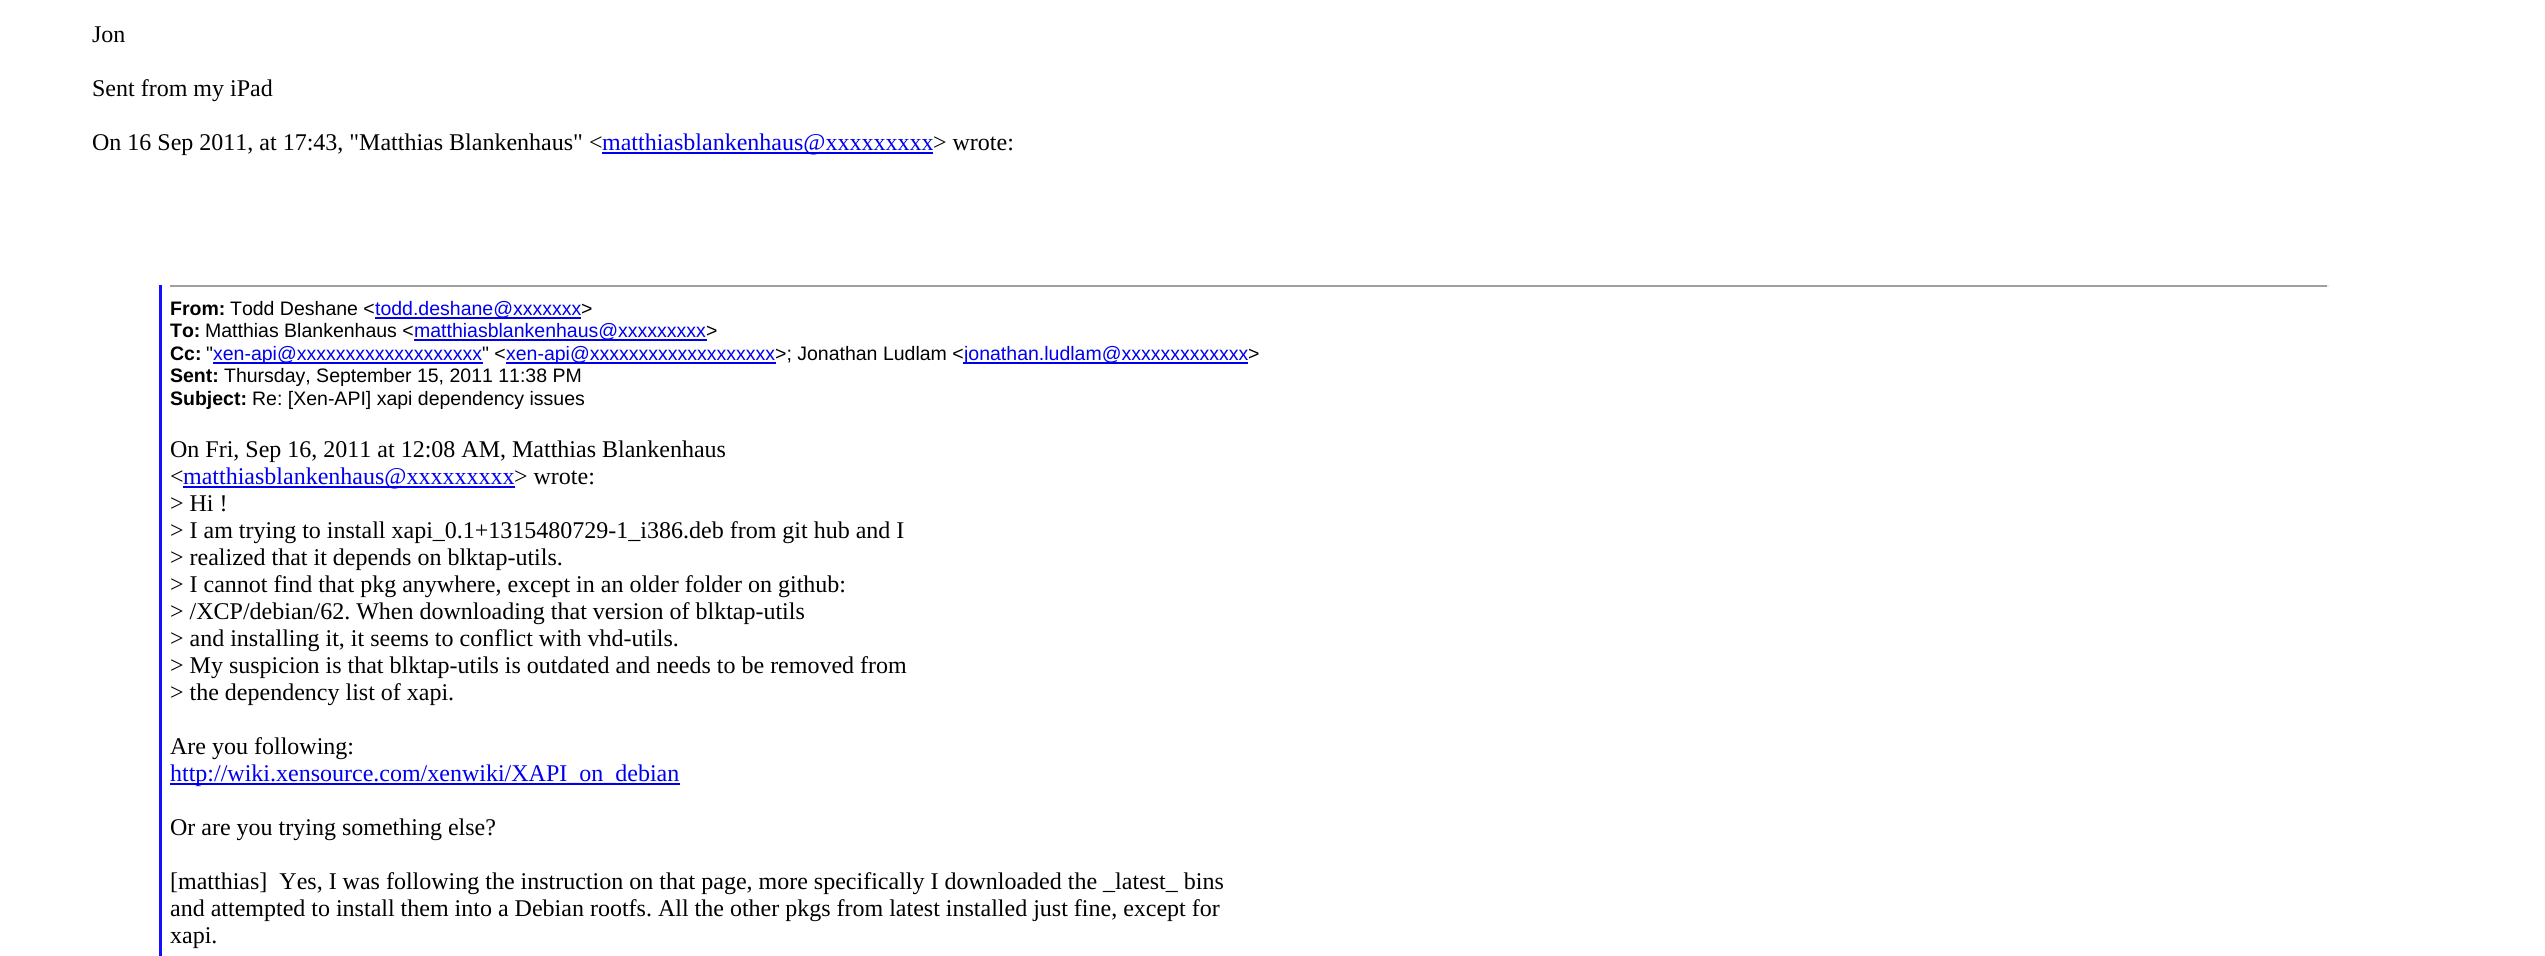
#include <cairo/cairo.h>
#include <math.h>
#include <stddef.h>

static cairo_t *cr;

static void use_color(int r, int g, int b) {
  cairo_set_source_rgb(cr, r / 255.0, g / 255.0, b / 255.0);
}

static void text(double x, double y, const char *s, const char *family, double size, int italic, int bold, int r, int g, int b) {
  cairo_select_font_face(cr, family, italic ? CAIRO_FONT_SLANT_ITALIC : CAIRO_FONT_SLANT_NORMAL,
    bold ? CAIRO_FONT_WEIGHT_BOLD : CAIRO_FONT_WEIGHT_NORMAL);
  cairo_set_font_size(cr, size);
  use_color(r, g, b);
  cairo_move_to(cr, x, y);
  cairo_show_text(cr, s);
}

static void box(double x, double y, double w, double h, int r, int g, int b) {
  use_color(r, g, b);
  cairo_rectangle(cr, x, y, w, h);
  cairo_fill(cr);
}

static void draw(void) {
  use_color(255, 255, 255);
  cairo_paint(cr);
  box(602, 152, 331, 2, 0, 0, 238);
  box(159, 285, 3, 671, 16, 16, 255);
  box(170, 285, 2158, 2, 159, 159, 159);
  box(2327, 285, 2, 2, 238, 238, 238);
  box(375, 317, 206, 2, 0, 0, 238);
  box(414, 339, 293, 2, 0, 0, 238);
  box(213, 362, 270, 2, 0, 0, 238);
  box(506, 362, 270, 2, 0, 0, 238);
  box(963, 362, 285, 2, 0, 0, 238);
  box(183, 486, 332, 2, 0, 0, 238);
  box(170, 783, 510, 2, 0, 0, 238);
  text(92, 42, "Jon", "Liberation Serif", 24, 0, 0, 0, 0, 0);
  text(92, 96, "Sent from my iPad", "Liberation Serif", 24, 0, 0, 0, 0, 0);
  text(92, 150, "On 16 Sep 2011, at 17:43, \"Matthias Blankenhaus\" <", "Liberation Serif", 24, 0, 0, 0, 0, 0);
  text(602, 150, "matthiasblankenhaus@xxxxxxxxx", "Liberation Serif", 24, 0, 0, 0, 0, 238);
  text(933, 150, "> wrote:", "Liberation Serif", 24, 0, 0, 0, 0, 0);
  text(170, 315, "From:", "Liberation Sans", 19.5, 0, 1, 0, 0, 0);
  text(230, 315, "Todd Deshane <", "Liberation Sans", 19.5, 0, 0, 0, 0, 0);
  text(375, 315, "todd.deshane@xxxxxxx", "Liberation Sans", 19.5, 0, 0, 0, 0, 238);
  text(581, 315, ">", "Liberation Sans", 19.5, 0, 0, 0, 0, 0);
  text(170, 337, "To:", "Liberation Sans", 19.5, 0, 1, 0, 0, 0);
  text(205, 337, "Matthias Blankenhaus <", "Liberation Sans", 19.5, 0, 0, 0, 0, 0);
  text(414, 337, "matthiasblankenhaus@xxxxxxxxx", "Liberation Sans", 19.5, 0, 0, 0, 0, 238);
  text(706, 337, ">", "Liberation Sans", 19.5, 0, 0, 0, 0, 0);
  text(170, 360, "Cc:", "Liberation Sans", 19.5, 0, 1, 0, 0, 0);
  text(206, 360, "\"", "Liberation Sans", 19.5, 0, 0, 0, 0, 0);
  text(213, 360, "xen-api@xxxxxxxxxxxxxxxxxxx", "Liberation Sans", 19.5, 0, 0, 0, 0, 238);
  text(482, 360, "\" <", "Liberation Sans", 19.5, 0, 0, 0, 0, 0);
  text(506, 360, "xen-api@xxxxxxxxxxxxxxxxxxx", "Liberation Sans", 19.5, 0, 0, 0, 0, 238);
  text(775, 360, ">; Jonathan Ludlam <", "Liberation Sans", 19.5, 0, 0, 0, 0, 0);
  text(964, 360, "jonathan.ludlam@xxxxxxxxxxxxx", "Liberation Sans", 19.5, 0, 0, 0, 0, 238);
  text(1248, 360, ">", "Liberation Sans", 19.5, 0, 0, 0, 0, 0);
  text(170, 382, "Sent:", "Liberation Sans", 19.5, 0, 1, 0, 0, 0);
  text(224, 382, "Thursday, September 15, 2011 11:38 PM", "Liberation Sans", 19.5, 0, 0, 0, 0, 0);
  text(170, 405, "Subject:", "Liberation Sans", 19.5, 0, 1, 0, 0, 0);
  text(252, 405, "Re: [Xen-API] xapi dependency issues", "Liberation Sans", 19.5, 0, 0, 0, 0, 0);
  text(170, 457, "On Fri, Sep 16, 2011 at 12:08 AM, Matthias Blankenhaus", "Liberation Serif", 24, 0, 0, 0, 0, 0);
  text(170, 484, "<", "Liberation Serif", 24, 0, 0, 0, 0, 0);
  text(183, 484, "matthiasblankenhaus@xxxxxxxxx", "Liberation Serif", 24, 0, 0, 0, 0, 238);
  text(514, 484, "> wrote:", "Liberation Serif", 24, 0, 0, 0, 0, 0);
  text(170, 511, "> Hi !", "Liberation Serif", 24, 0, 0, 0, 0, 0);
  text(170, 538, "> I am trying to install xapi_0.1+1315480729-1_i386.deb from git hub and I", "Liberation Serif", 24, 0, 0, 0, 0, 0);
  text(170, 565, "> realized that it depends on blktap-utils.", "Liberation Serif", 24, 0, 0, 0, 0, 0);
  text(170, 592, "> I cannot find that pkg anywhere, except in an older folder on github:", "Liberation Serif", 24, 0, 0, 0, 0, 0);
  text(170, 619, "> /XCP/debian/62. When downloading that version of blktap-utils", "Liberation Serif", 24, 0, 0, 0, 0, 0);
  text(170, 646, "> and installing it, it seems to conflict with vhd-utils.", "Liberation Serif", 24, 0, 0, 0, 0, 0);
  text(170, 673, "> My suspicion is that blktap-utils is outdated and needs to be removed from", "Liberation Serif", 24, 0, 0, 0, 0, 0);
  text(170, 700, "> the dependency list of xapi.", "Liberation Serif", 24, 0, 0, 0, 0, 0);
  text(170, 754, "Are you following:", "Liberation Serif", 24, 0, 0, 0, 0, 0);
  text(170, 781, "http://wiki.xensource.com/xenwiki/XAPI_on_debian", "Liberation Serif", 24, 0, 0, 0, 0, 238);
  text(170, 835, "Or are you trying something else?", "Liberation Serif", 24, 0, 0, 0, 0, 0);
  text(170, 889, "[matthias]  Yes, I was following the instruction on that page, more specifically I downloaded the _latest_ bins", "Liberation Serif", 24, 0, 0, 0, 0, 0);
  text(170, 916, "and attempted to install them into a Debian rootfs. All the other pkgs from latest installed just fine, except for", "Liberation Serif", 24, 0, 0, 0, 0, 0);
  text(170, 943, "xapi.", "Liberation Serif", 24, 0, 0, 0, 0, 0);
}

int main(void) {
  cairo_surface_t *surface = cairo_image_surface_create(CAIRO_FORMAT_RGB24, 2545, 956);
  cr = cairo_create(surface);
  cairo_font_options_t *options = cairo_font_options_create();
  cairo_font_options_set_hint_metrics(options, CAIRO_HINT_METRICS_OFF);
  cairo_font_options_set_hint_style(options, CAIRO_HINT_STYLE_NONE);
  cairo_set_font_options(cr, options);
  cairo_set_miter_limit(cr, 4);
  draw();
  cairo_surface_write_to_png(surface, "out.png");
  cairo_font_options_destroy(options);
  cairo_destroy(cr);
  cairo_surface_destroy(surface);
  return 0;
}
